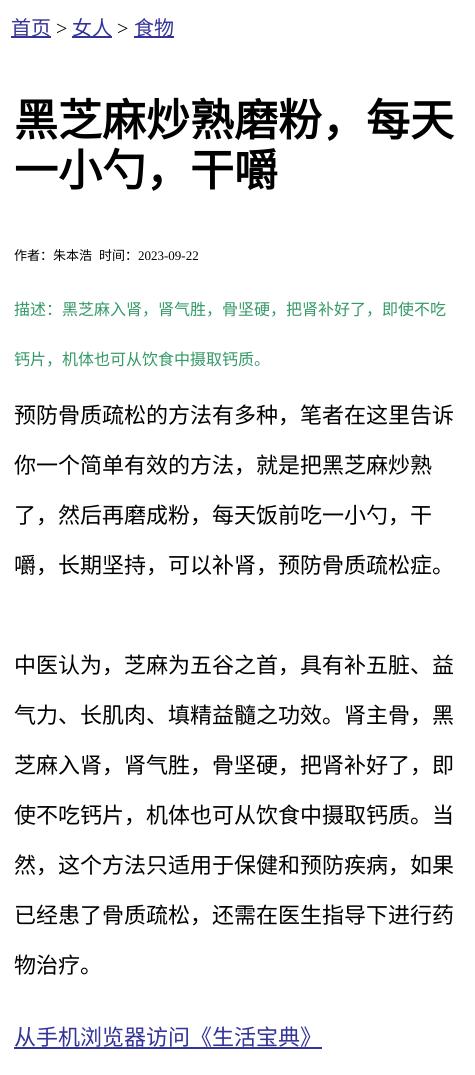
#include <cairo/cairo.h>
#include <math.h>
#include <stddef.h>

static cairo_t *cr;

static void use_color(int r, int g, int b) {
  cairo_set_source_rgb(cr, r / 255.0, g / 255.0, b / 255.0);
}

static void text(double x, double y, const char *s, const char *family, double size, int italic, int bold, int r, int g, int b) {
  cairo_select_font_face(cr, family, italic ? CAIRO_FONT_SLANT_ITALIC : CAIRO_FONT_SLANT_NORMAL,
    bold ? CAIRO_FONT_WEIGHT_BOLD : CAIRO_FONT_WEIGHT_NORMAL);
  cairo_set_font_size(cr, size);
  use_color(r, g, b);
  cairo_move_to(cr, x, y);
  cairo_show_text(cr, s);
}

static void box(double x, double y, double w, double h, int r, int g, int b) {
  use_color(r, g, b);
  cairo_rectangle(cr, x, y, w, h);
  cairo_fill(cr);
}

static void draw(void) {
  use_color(255, 255, 255);
  cairo_paint(cr);
  box(11, 36, 40, 2, 51, 51, 153);
  box(72, 36, 40, 2, 51, 51, 153);
  box(134, 36, 40, 2, 51, 51, 153);
  box(14, 1047, 308, 2, 51, 51, 153);
  text(11, 35, "首页", "Noto Sans CJK SC", 20, 0, 0, 51, 51, 153);
  text(56, 35, ">", "Liberation Serif", 20, 0, 0, 0, 0, 0);
  text(72, 35, "女人", "Noto Sans CJK SC", 20, 0, 0, 51, 51, 153);
  text(117, 35, ">", "Liberation Serif", 20, 0, 0, 0, 0, 0);
  text(134, 35, "食物", "Noto Sans CJK SC", 20, 0, 0, 51, 51, 153);
  text(14, 136, "黑芝麻炒熟磨粉，每天", "Noto Sans CJK SC", 44, 0, 1, 0, 0, 0);
  text(14, 186, "一小勺，干嚼", "Noto Sans CJK SC", 44, 0, 1, 0, 0, 0);
  text(14, 260, "作者：朱本浩", "Noto Sans CJK SC", 13, 0, 0, 0, 0, 0);
  text(99, 260, "时间：", "Noto Sans CJK SC", 13, 0, 0, 0, 0, 0);
  text(138, 260, "2023-09-22", "Liberation Serif", 13, 0, 0, 0, 0, 0);
  text(14, 315, "描述：黑芝麻入肾，肾气胜，骨坚硬，把肾补好了，即使不吃", "Noto Sans CJK SC", 16, 0, 0, 51, 153, 102);
  text(14, 365, "钙片，机体也可从饮食中摄取钙质。", "Noto Sans CJK SC", 16, 0, 0, 51, 153, 102);
  text(14, 423, "预防骨质疏松的方法有多种，笔者在这里告诉", "Noto Sans CJK SC", 22, 0, 0, 0, 0, 0);
  text(14, 473, "你一个简单有效的方法，就是把黑芝麻炒熟", "Noto Sans CJK SC", 22, 0, 0, 0, 0, 0);
  text(14, 523, "了，然后再磨成粉，每天饭前吃一小勺，干", "Noto Sans CJK SC", 22, 0, 0, 0, 0, 0);
  text(14, 573, "嚼，长期坚持，可以补肾，预防骨质疏松症。", "Noto Sans CJK SC", 22, 0, 0, 0, 0, 0);
  text(14, 673, "中医认为，芝麻为五谷之首，具有补五脏、益", "Noto Sans CJK SC", 22, 0, 0, 0, 0, 0);
  text(14, 723, "气力、长肌肉、填精益髓之功效。肾主骨，黑", "Noto Sans CJK SC", 22, 0, 0, 0, 0, 0);
  text(14, 773, "芝麻入肾，肾气胜，骨坚硬，把肾补好了，即", "Noto Sans CJK SC", 22, 0, 0, 0, 0, 0);
  text(14, 823, "使不吃钙片，机体也可从饮食中摄取钙质。当", "Noto Sans CJK SC", 22, 0, 0, 0, 0, 0);
  text(14, 873, "然，这个方法只适用于保健和预防疾病，如果", "Noto Sans CJK SC", 22, 0, 0, 0, 0, 0);
  text(14, 923, "已经患了骨质疏松，还需在医生指导下进行药", "Noto Sans CJK SC", 22, 0, 0, 0, 0, 0);
  text(14, 973, "物治疗。", "Noto Sans CJK SC", 22, 0, 0, 0, 0, 0);
  text(14, 1045, "从手机浏览器访问《生活宝典》", "Noto Sans CJK SC", 22, 0, 0, 51, 51, 153);
}

int main(void) {
  cairo_surface_t *surface = cairo_image_surface_create(CAIRO_FORMAT_RGB24, 475, 1075);
  cr = cairo_create(surface);
  cairo_font_options_t *options = cairo_font_options_create();
  cairo_font_options_set_hint_metrics(options, CAIRO_HINT_METRICS_OFF);
  cairo_font_options_set_hint_style(options, CAIRO_HINT_STYLE_NONE);
  cairo_set_font_options(cr, options);
  cairo_set_miter_limit(cr, 4);
  draw();
  cairo_surface_write_to_png(surface, "out.png");
  cairo_font_options_destroy(options);
  cairo_destroy(cr);
  cairo_surface_destroy(surface);
  return 0;
}
